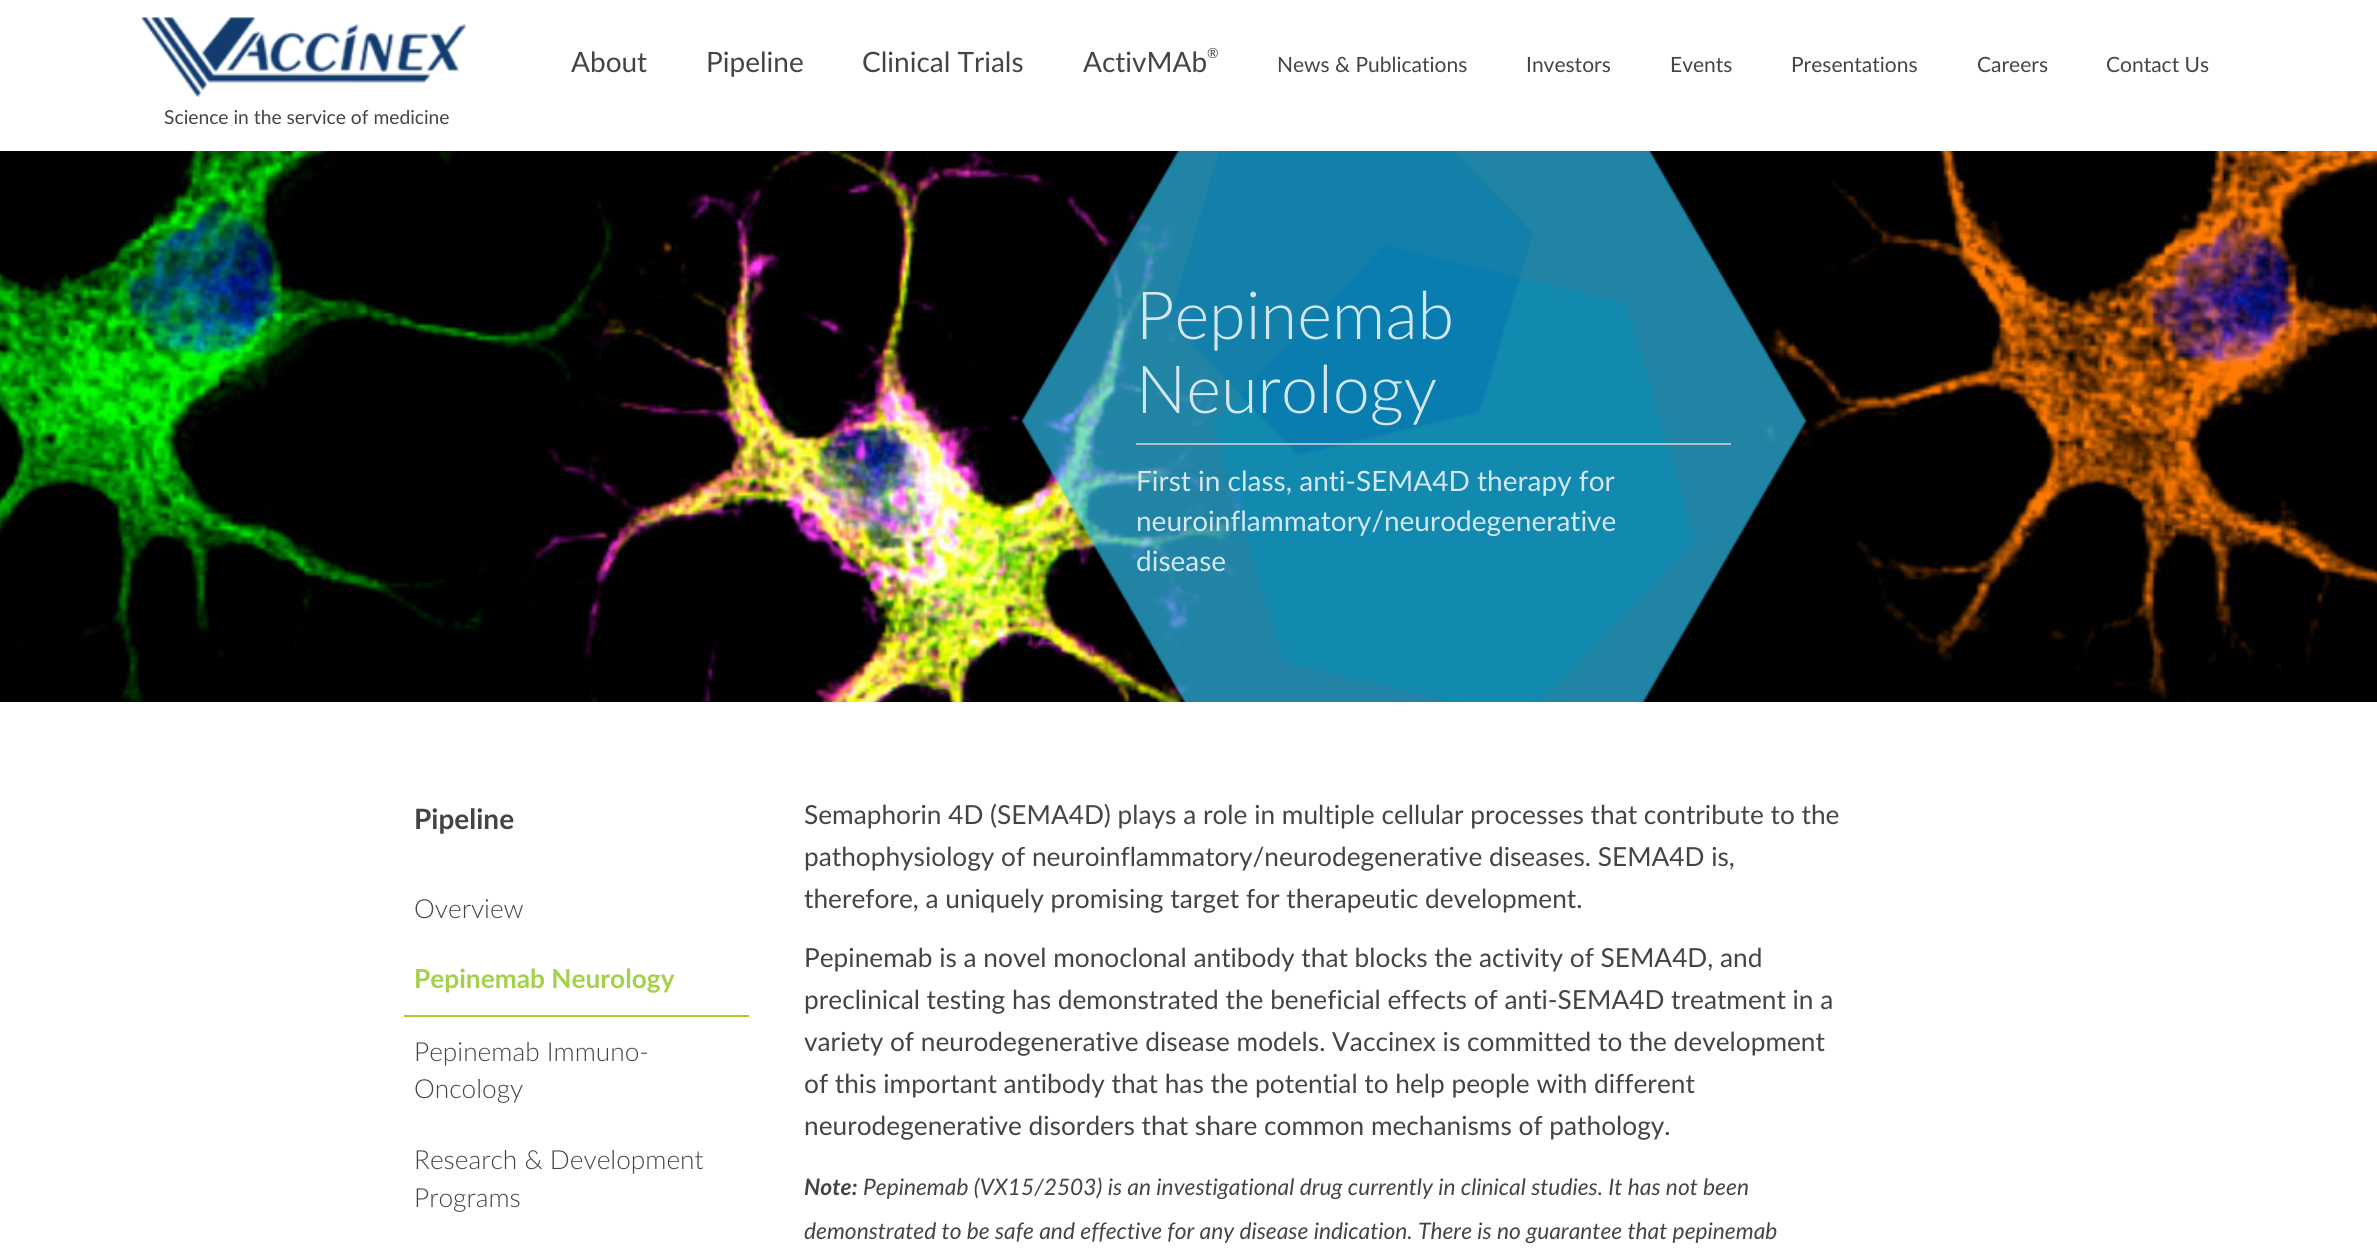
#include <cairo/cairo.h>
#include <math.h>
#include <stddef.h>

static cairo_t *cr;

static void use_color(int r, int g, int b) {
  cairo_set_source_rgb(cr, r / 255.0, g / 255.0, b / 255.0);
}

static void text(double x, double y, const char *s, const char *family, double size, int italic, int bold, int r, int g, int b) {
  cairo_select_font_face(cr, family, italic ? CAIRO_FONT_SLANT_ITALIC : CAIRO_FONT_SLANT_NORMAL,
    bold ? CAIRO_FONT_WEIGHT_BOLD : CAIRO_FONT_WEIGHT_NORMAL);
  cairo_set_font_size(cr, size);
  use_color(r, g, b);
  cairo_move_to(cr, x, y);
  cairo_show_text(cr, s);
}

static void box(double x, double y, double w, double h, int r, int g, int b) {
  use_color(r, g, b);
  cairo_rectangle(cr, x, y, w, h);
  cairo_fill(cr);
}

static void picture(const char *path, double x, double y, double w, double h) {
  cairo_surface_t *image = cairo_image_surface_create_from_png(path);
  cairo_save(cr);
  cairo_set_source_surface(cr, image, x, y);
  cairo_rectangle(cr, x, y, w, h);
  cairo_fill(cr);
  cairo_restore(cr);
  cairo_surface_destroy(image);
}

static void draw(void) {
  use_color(255, 255, 255);
  cairo_paint(cr);
  picture("img_01.png", 141, 17, 325, 80);
  picture("img_02.png", 0, 151, 2377, 551);
  picture("img_03.png", 1022, 151, 784, 551);
  cairo_set_source_rgba(cr, 0.792, 0.792, 0.792, 0.81);
  cairo_rectangle(cr, 1136, 443, 595, 2);
  cairo_fill(cr);
  box(404, 1015, 345, 2, 162, 209, 36);
  text(571, 72, "About", "Lato", 28, 0, 0, 68, 68, 68);
  text(706, 72, "Pipeline", "Lato", 28, 0, 0, 68, 68, 68);
  text(862, 72, "Clinical Trials", "Lato", 28, 0, 0, 68, 68, 68);
  text(1083, 72, "ActivMAb", "Lato", 28, 0, 0, 68, 68, 68);
  text(1207, 58, "®", "Lato", 14, 0, 0, 68, 68, 68);
  text(1277, 72, "News & Publications", "Lato", 21, 0, 0, 68, 68, 68);
  text(1526, 72, "Investors", "Lato", 21, 0, 0, 68, 68, 68);
  text(1670, 72, "Events", "Lato", 21, 0, 0, 68, 68, 68);
  text(1791, 72, "Presentations", "Lato", 21, 0, 0, 68, 68, 68);
  text(1977, 72, "Careers", "Lato", 21, 0, 0, 68, 68, 68);
  text(2106, 72, "Contact Us", "Lato", 21, 0, 0, 68, 68, 68);
  text(164, 124, "Science in the service of medicine", "Lato", 19.25, 0, 0, 68, 68, 68);
  text(1136, 339, "Pepinemab", "Lato Light", 66.5, 0, 0, 211, 231, 240);
  text(1136, 413, "Neurology", "Lato Light", 66.5, 0, 0, 211, 231, 240);
  text(1136, 491, "First in class, anti-SEMA4D therapy for", "Lato", 28, 0, 0, 211, 231, 240);
  text(1136, 531, "neuroinflammatory/neurodegenerative", "Lato", 28, 0, 0, 211, 231, 240);
  text(1136, 571, "disease", "Lato", 28, 0, 0, 211, 231, 240);
  text(414, 829, "Pipeline", "Lato", 28, 0, 1, 68, 68, 68);
  text(414, 918, "Overview", "Lato Light", 26.25, 0, 0, 68, 68, 68);
  text(414, 988, "Pepinemab Neurology", "Lato", 26.25, 0, 1, 163, 209, 71);
  text(414, 1061, "Pepinemab Immuno-", "Lato Light", 26.25, 0, 0, 68, 68, 68);
  text(414, 1098, "Oncology", "Lato Light", 26.25, 0, 0, 68, 68, 68);
  text(414, 1169, "Research & Development", "Lato Light", 26.25, 0, 0, 68, 68, 68);
  text(414, 1207, "Programs", "Lato Light", 26.25, 0, 0, 68, 68, 68);
  text(804, 824, "Semaphorin 4D (SEMA4D) plays a role in multiple cellular processes that contribute to the", "Lato", 26.25, 0, 0, 68, 68, 68);
  text(804, 866, "pathophysiology of neuroinflammatory/neurodegenerative diseases. SEMA4D is,", "Lato", 26.25, 0, 0, 68, 68, 68);
  text(804, 908, "therefore, a uniquely promising target for therapeutic development.", "Lato", 26.25, 0, 0, 68, 68, 68);
  text(804, 967, "Pepinemab is a novel monoclonal antibody that blocks the activity of SEMA4D, and", "Lato", 26.25, 0, 0, 68, 68, 68);
  text(804, 1009, "preclinical testing has demonstrated the beneficial effects of anti-SEMA4D treatment in a", "Lato", 26.25, 0, 0, 68, 68, 68);
  text(804, 1051, "variety of neurodegenerative disease models. Vaccinex is committed to the development", "Lato", 26.25, 0, 0, 68, 68, 68);
  text(804, 1093, "of this important antibody that has the potential to help people with different", "Lato", 26.25, 0, 0, 68, 68, 68);
  text(804, 1135, "neurodegenerative disorders that share common mechanisms of pathology.", "Lato", 26.25, 0, 0, 68, 68, 68);
  text(804, 1195, "Note:", "Lato", 22.75, 1, 1, 68, 68, 68);
  text(863, 1195, "Pepinemab (VX15/2503) is an investigational drug currently in clinical studies. It has not been", "Lato", 22.75, 1, 0, 68, 68, 68);
  text(804, 1239, "demonstrated to be safe and effective for any disease indication. There is no guarantee that pepinemab", "Lato", 22.75, 1, 0, 68, 68, 68);
}

int main(void) {
  cairo_surface_t *surface = cairo_image_surface_create(CAIRO_FORMAT_RGB24, 2377, 1257);
  cr = cairo_create(surface);
  cairo_font_options_t *options = cairo_font_options_create();
  cairo_font_options_set_hint_metrics(options, CAIRO_HINT_METRICS_OFF);
  cairo_font_options_set_hint_style(options, CAIRO_HINT_STYLE_NONE);
  cairo_set_font_options(cr, options);
  cairo_set_miter_limit(cr, 4);
  draw();
  cairo_surface_write_to_png(surface, "out.png");
  cairo_font_options_destroy(options);
  cairo_destroy(cr);
  cairo_surface_destroy(surface);
  return 0;
}
